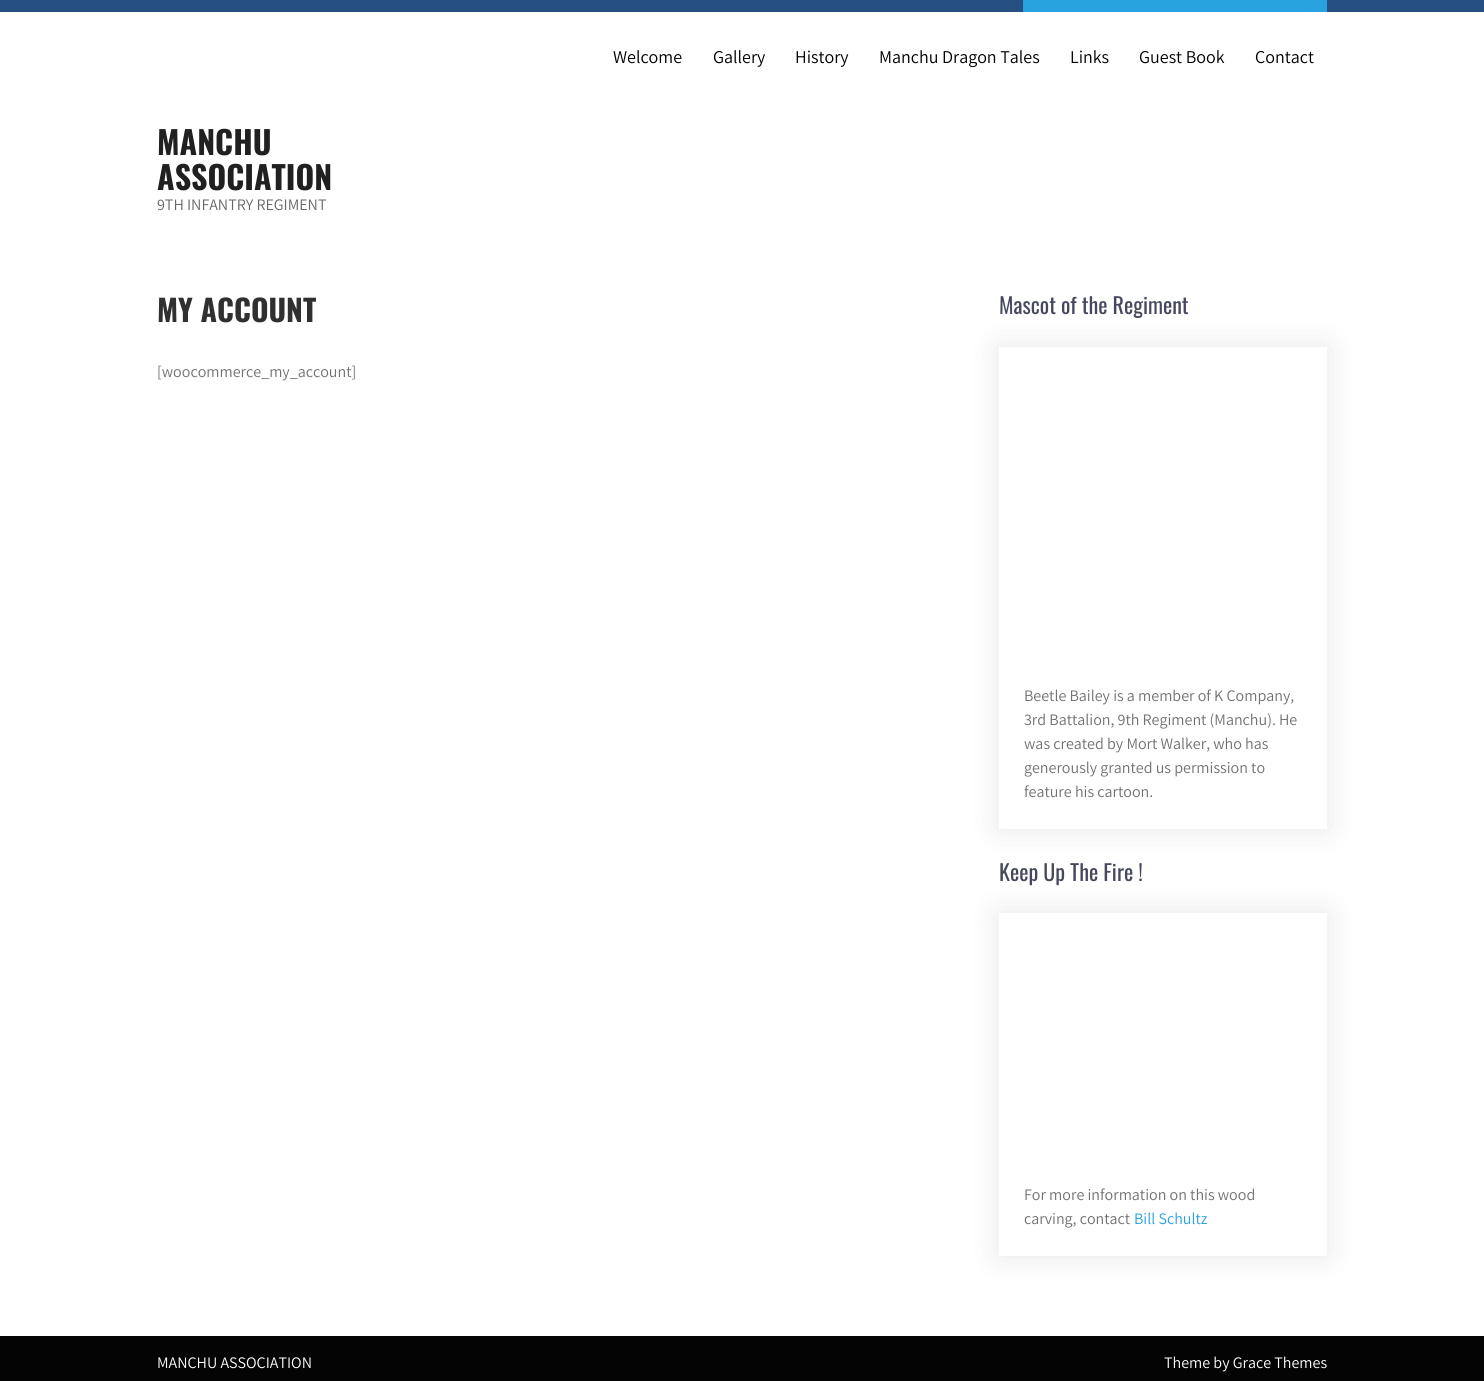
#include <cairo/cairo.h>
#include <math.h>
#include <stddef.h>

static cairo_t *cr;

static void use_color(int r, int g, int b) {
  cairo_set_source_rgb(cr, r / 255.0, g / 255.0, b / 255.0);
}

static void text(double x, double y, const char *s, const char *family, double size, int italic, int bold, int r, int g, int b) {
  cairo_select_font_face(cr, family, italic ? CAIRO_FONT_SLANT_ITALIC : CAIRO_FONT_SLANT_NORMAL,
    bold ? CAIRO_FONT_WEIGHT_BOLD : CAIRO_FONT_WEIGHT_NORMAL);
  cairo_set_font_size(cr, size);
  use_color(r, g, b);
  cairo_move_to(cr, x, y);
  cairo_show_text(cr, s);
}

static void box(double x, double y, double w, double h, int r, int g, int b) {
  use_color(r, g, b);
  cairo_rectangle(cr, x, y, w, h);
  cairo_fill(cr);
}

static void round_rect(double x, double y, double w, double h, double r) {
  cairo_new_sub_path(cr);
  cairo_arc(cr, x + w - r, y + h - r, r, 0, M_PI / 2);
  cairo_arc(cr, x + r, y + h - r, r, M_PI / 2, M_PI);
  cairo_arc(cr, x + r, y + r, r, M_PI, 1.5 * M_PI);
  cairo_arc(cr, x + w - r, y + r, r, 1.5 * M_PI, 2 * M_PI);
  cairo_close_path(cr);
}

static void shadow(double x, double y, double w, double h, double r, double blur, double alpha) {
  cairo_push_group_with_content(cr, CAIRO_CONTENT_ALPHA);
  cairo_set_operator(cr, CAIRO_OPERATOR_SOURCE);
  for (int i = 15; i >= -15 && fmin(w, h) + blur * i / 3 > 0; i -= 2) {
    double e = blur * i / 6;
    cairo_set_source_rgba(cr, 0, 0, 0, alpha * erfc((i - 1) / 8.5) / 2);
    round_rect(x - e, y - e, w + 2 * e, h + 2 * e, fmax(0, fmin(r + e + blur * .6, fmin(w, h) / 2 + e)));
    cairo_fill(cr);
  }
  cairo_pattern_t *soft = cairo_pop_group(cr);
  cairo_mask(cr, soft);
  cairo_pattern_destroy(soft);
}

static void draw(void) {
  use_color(255, 255, 255);
  cairo_paint(cr);
  box(0, 0, 1484, 12, 38, 80, 129);
  box(1023, 0, 304, 12, 40, 161, 223);
  cairo_save(cr);
  cairo_set_fill_rule(cr, CAIRO_FILL_RULE_EVEN_ODD);
  cairo_new_path(cr);
  cairo_move_to(cr, 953, 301);
  cairo_line_to(cr, 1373, 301);
  cairo_line_to(cr, 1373, 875);
  cairo_line_to(cr, 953, 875);
  cairo_close_path(cr);
  cairo_move_to(cr, 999, 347);
  cairo_line_to(cr, 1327, 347);
  cairo_line_to(cr, 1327, 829);
  cairo_line_to(cr, 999, 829);
  cairo_close_path(cr);
  cairo_clip(cr);
  use_color(0, 0, 0);
  shadow(999, 347, 328, 482, 0, 15, 0.1);
  cairo_restore(cr);
  cairo_save(cr);
  cairo_set_fill_rule(cr, CAIRO_FILL_RULE_EVEN_ODD);
  cairo_new_path(cr);
  cairo_move_to(cr, 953, 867);
  cairo_line_to(cr, 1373, 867);
  cairo_line_to(cr, 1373, 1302);
  cairo_line_to(cr, 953, 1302);
  cairo_close_path(cr);
  cairo_move_to(cr, 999, 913);
  cairo_line_to(cr, 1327, 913);
  cairo_line_to(cr, 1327, 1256);
  cairo_line_to(cr, 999, 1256);
  cairo_close_path(cr);
  cairo_clip(cr);
  use_color(0, 0, 0);
  shadow(999, 913, 328, 343, 0, 15, 0.1);
  cairo_restore(cr);
  box(0, 1336, 1484, 45, 5, 4, 4);
  text(613, 63, "Welcome", "Assistant", 18, 0, 0, 0, 0, 0);
  text(713, 63, "Gallery", "Assistant", 18, 0, 0, 0, 0, 0);
  text(795, 63, "History", "Assistant", 18, 0, 0, 0, 0, 0);
  text(879, 63, "Manchu Dragon Tales", "Assistant", 18, 0, 0, 0, 0, 0);
  text(1070, 63, "Links", "Assistant", 18, 0, 0, 0, 0, 0);
  text(1139, 63, "Guest Book", "Assistant", 18, 0, 0, 0, 0, 0);
  text(1255, 63, "Contact", "Assistant", 18, 0, 0, 0, 0, 0);
  text(157, 155, "MANCHU", "Oswald", 32, 0, 1, 32, 32, 32);
  text(157, 190, "ASSOCIATION", "Oswald", 32, 0, 1, 32, 32, 32);
  text(157, 210, "9TH INFANTRY REGIMENT", "Assistant", 16, 0, 0, 102, 102, 102);
  text(157, 322, "MY ACCOUNT", "Oswald", 30, 0, 1, 48, 48, 48);
  text(157, 377, "[woocommerce_my_account]", "Assistant", 16, 0, 0, 113, 113, 113);
  text(999, 314, "Mascot of the Regiment", "Oswald", 22, 0, 0, 70, 72, 95);
  text(1024, 701, "Beetle Bailey is a member of K Company,", "Assistant", 16, 0, 0, 113, 113, 113);
  text(1024, 725, "3rd Battalion, 9th Regiment (Manchu). He", "Assistant", 16, 0, 0, 113, 113, 113);
  text(1024, 749, "was created by Mort Walker, who has", "Assistant", 16, 0, 0, 113, 113, 113);
  text(1024, 773, "generously granted us permission to", "Assistant", 16, 0, 0, 113, 113, 113);
  text(1024, 797, "feature his cartoon.", "Assistant", 16, 0, 0, 113, 113, 113);
  text(999, 881, "Keep Up The Fire !", "Oswald", 22, 0, 0, 70, 72, 95);
  text(1024, 1200, "For more information on this wood", "Assistant", 16, 0, 0, 113, 113, 113);
  text(1024, 1224, "carving, contact", "Assistant", 16, 0, 0, 113, 113, 113);
  text(1134, 1224, "Bill Schultz", "Assistant", 16, 0, 0, 40, 161, 223);
  text(157, 1368, "MANCHU ASSOCIATION", "Assistant", 16, 0, 0, 255, 255, 255);
  text(1164, 1368, "Theme by Grace Themes", "Assistant", 16, 0, 0, 255, 255, 255);
}

int main(void) {
  cairo_surface_t *surface = cairo_image_surface_create(CAIRO_FORMAT_RGB24, 1484, 1381);
  cr = cairo_create(surface);
  cairo_font_options_t *options = cairo_font_options_create();
  cairo_font_options_set_hint_metrics(options, CAIRO_HINT_METRICS_OFF);
  cairo_font_options_set_hint_style(options, CAIRO_HINT_STYLE_NONE);
  cairo_set_font_options(cr, options);
  cairo_set_miter_limit(cr, 4);
  draw();
  cairo_surface_write_to_png(surface, "out.png");
  cairo_font_options_destroy(options);
  cairo_destroy(cr);
  cairo_surface_destroy(surface);
  return 0;
}
